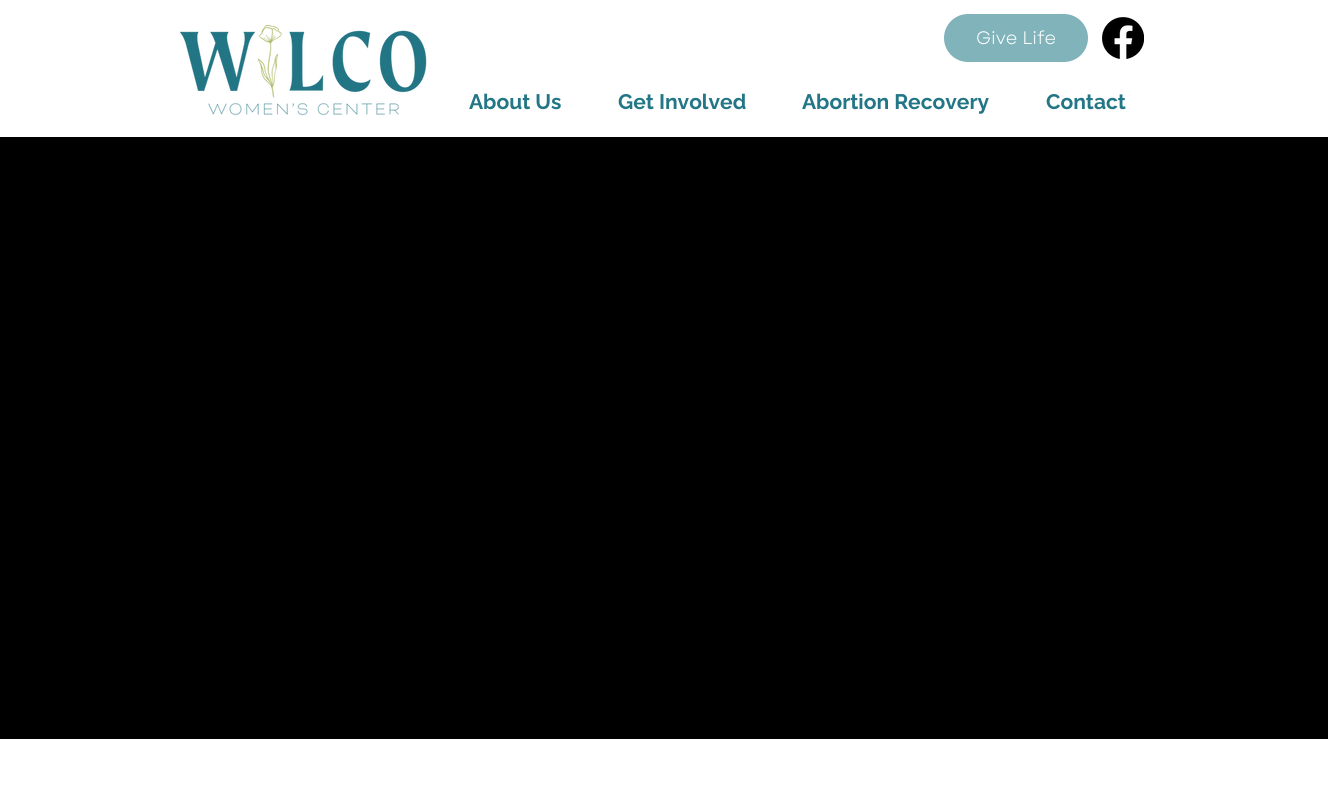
#include <cairo/cairo.h>
#include <math.h>
#include <stddef.h>

static cairo_t *cr;

static void use_color(int r, int g, int b) {
  cairo_set_source_rgb(cr, r / 255.0, g / 255.0, b / 255.0);
}

static void text(double x, double y, const char *s, const char *family, double size, int italic, int bold, int r, int g, int b) {
  cairo_select_font_face(cr, family, italic ? CAIRO_FONT_SLANT_ITALIC : CAIRO_FONT_SLANT_NORMAL,
    bold ? CAIRO_FONT_WEIGHT_BOLD : CAIRO_FONT_WEIGHT_NORMAL);
  cairo_set_font_size(cr, size);
  use_color(r, g, b);
  cairo_move_to(cr, x, y);
  cairo_show_text(cr, s);
}

static void box(double x, double y, double w, double h, int r, int g, int b) {
  use_color(r, g, b);
  cairo_rectangle(cr, x, y, w, h);
  cairo_fill(cr);
}

static void round_rect(double x, double y, double w, double h, double r) {
  cairo_new_sub_path(cr);
  cairo_arc(cr, x + w - r, y + h - r, r, 0, M_PI / 2);
  cairo_arc(cr, x + r, y + h - r, r, M_PI / 2, M_PI);
  cairo_arc(cr, x + r, y + r, r, M_PI, 1.5 * M_PI);
  cairo_arc(cr, x + w - r, y + r, r, 1.5 * M_PI, 2 * M_PI);
  cairo_close_path(cr);
}

static void picture(const char *path, double x, double y, double w, double h) {
  cairo_surface_t *image = cairo_image_surface_create_from_png(path);
  cairo_save(cr);
  cairo_set_source_surface(cr, image, x, y);
  cairo_rectangle(cr, x, y, w, h);
  cairo_fill(cr);
  cairo_restore(cr);
  cairo_surface_destroy(image);
}

static void draw(void) {
  use_color(255, 255, 255);
  cairo_paint(cr);
  picture("img_01.png", 179, 25, 248, 91);
  use_color(128, 179, 186);
  round_rect(944, 14, 144, 48, 24);
  cairo_fill(cr);
  picture("img_02.png", 1102, 17, 42, 42);
  box(0, 137, 1328, 602, 0, 0, 0);
  text(976, 44, "Give Life", "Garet", 18, 0, 0, 255, 255, 255);
  text(469, 109, "About Us", "Raleway", 21, 0, 1, 34, 118, 133);
  text(618, 109, "Get Involved", "Raleway", 21, 0, 1, 34, 118, 133);
  text(802, 109, "Abortion Recovery", "Raleway", 21, 0, 1, 34, 118, 133);
  text(1046, 109, "Contact", "Raleway", 21, 0, 1, 34, 118, 133);
}

int main(void) {
  cairo_surface_t *surface = cairo_image_surface_create(CAIRO_FORMAT_RGB24, 1328, 800);
  cr = cairo_create(surface);
  cairo_font_options_t *options = cairo_font_options_create();
  cairo_font_options_set_hint_metrics(options, CAIRO_HINT_METRICS_OFF);
  cairo_font_options_set_hint_style(options, CAIRO_HINT_STYLE_NONE);
  cairo_set_font_options(cr, options);
  cairo_set_miter_limit(cr, 4);
  draw();
  cairo_surface_write_to_png(surface, "out.png");
  cairo_font_options_destroy(options);
  cairo_destroy(cr);
  cairo_surface_destroy(surface);
  return 0;
}
